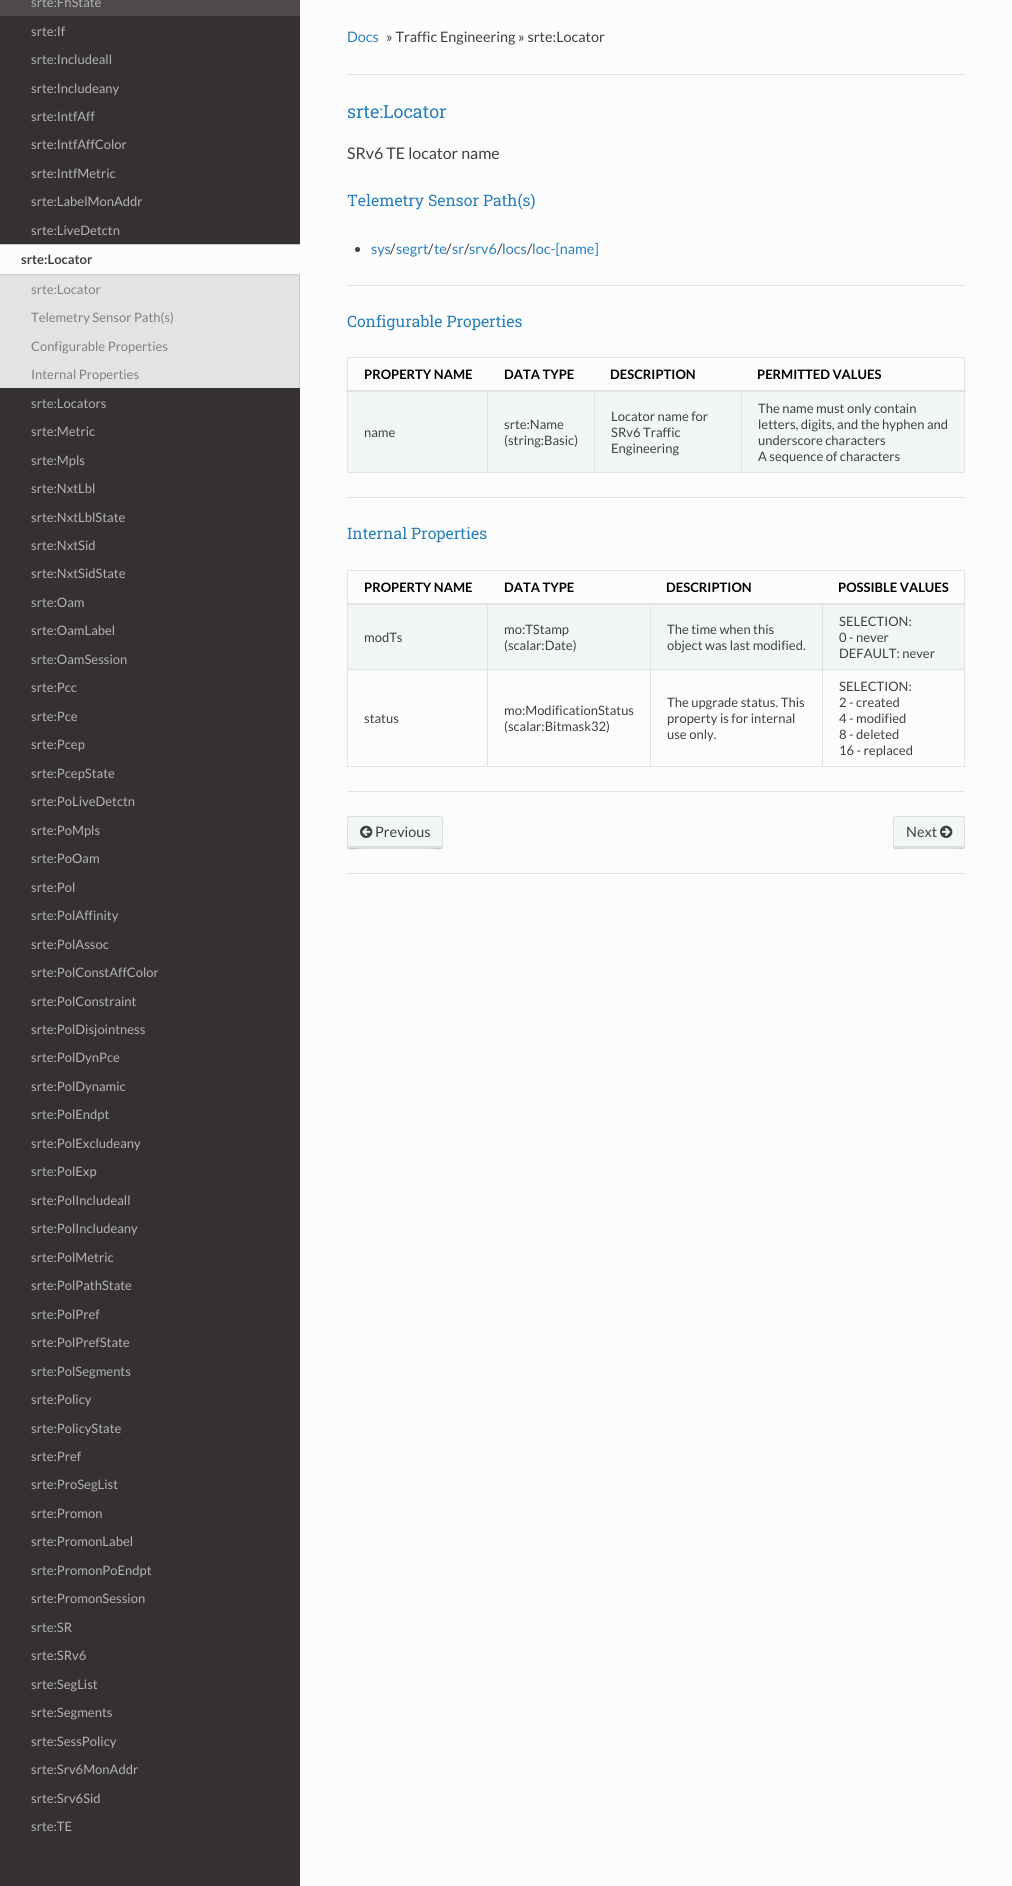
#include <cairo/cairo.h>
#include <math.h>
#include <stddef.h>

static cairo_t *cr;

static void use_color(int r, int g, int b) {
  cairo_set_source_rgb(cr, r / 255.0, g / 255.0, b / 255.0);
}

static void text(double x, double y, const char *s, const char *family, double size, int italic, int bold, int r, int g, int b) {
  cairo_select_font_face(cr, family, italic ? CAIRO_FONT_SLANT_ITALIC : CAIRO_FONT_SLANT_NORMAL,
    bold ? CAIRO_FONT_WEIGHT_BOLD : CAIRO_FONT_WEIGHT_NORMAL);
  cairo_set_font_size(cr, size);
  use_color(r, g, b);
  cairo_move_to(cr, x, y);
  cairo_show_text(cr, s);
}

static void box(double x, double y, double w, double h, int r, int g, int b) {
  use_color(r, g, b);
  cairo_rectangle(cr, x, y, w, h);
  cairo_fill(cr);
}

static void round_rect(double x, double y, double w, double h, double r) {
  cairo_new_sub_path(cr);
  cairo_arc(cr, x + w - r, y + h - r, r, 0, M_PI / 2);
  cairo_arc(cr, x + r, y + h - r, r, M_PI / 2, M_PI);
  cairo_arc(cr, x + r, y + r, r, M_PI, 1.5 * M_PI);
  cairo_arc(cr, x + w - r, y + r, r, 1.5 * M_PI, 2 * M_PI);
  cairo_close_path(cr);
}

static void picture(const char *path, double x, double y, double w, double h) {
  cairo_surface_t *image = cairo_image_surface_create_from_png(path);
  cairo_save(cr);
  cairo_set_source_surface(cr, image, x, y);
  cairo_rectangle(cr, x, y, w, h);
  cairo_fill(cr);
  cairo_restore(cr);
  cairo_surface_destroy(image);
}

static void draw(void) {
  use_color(252, 252, 252);
  cairo_paint(cr);
  box(0, 16, 300, 1870, 53, 49, 49);
  box(0, 0, 300, 16, 78, 74, 74);
  box(0, 275, 299, 113, 227, 227, 227);
  box(0, 245, 300, 29, 252, 252, 252);
  box(0, 244, 300, 1, 201, 201, 201);
  box(0, 274, 300, 1, 201, 201, 201);
  box(299, 275, 1, 113, 201, 201, 201);
  box(347, 74, 618, 1, 225, 228, 229);
  use_color(64, 64, 64);
  cairo_arc(cr, 357.5, 249.5, 2.5, 0, 2 * M_PI);
  cairo_fill(cr);
  box(347, 285, 618, 1, 225, 228, 229);
  box(347, 357, 618, 1, 225, 228, 229);
  box(964, 357, 1, 116, 225, 228, 229);
  box(347, 472, 618, 1, 225, 228, 229);
  box(347, 357, 1, 116, 225, 228, 229);
  box(487, 391, 1, 82, 225, 228, 229);
  box(594, 391, 1, 82, 225, 228, 229);
  box(741, 391, 1, 82, 225, 228, 229);
  box(346, 390, 620, 2, 225, 228, 229);
  box(348, 392, 139, 80, 243, 246, 246);
  box(488, 392, 106, 80, 243, 246, 246);
  box(595, 392, 146, 80, 243, 246, 246);
  box(742, 392, 222, 80, 243, 246, 246);
  box(347, 497, 618, 1, 225, 228, 229);
  box(347, 570, 618, 1, 225, 228, 229);
  box(964, 570, 1, 197, 225, 228, 229);
  box(347, 766, 618, 1, 225, 228, 229);
  box(347, 570, 1, 197, 225, 228, 229);
  box(822, 669, 1, 98, 225, 228, 229);
  box(822, 669, 143, 1, 225, 228, 229);
  box(822, 603, 1, 67, 225, 228, 229);
  box(650, 669, 1, 98, 225, 228, 229);
  box(650, 669, 173, 1, 225, 228, 229);
  box(650, 603, 1, 67, 225, 228, 229);
  box(487, 669, 1, 98, 225, 228, 229);
  box(487, 669, 164, 1, 225, 228, 229);
  box(487, 603, 1, 67, 225, 228, 229);
  box(346, 603, 620, 2, 225, 228, 229);
  box(348, 605, 139, 64, 243, 246, 246);
  box(347, 669, 141, 1, 225, 228, 229);
  box(488, 605, 162, 64, 243, 246, 246);
  box(651, 605, 171, 64, 243, 246, 246);
  box(823, 605, 141, 64, 243, 246, 246);
  box(347, 791, 618, 1, 225, 228, 229);
  use_color(243, 246, 246);
  round_rect(347, 816, 96, 33, 2);
  cairo_fill(cr);
  use_color(219, 221, 221);
  cairo_new_path(cr);
  cairo_move_to(cr, 348, 845);
  cairo_curve_to(cr, 348, 853, 355, 848, 364, 848);
  cairo_line_to(cr, 426, 848);
  cairo_curve_to(cr, 435, 848, 442, 853, 442, 845);
  cairo_curve_to(cr, 442, 846, 442, 846, 441, 846);
  cairo_line_to(cr, 349, 846);
  cairo_curve_to(cr, 348, 846, 348, 846, 348, 845);
  cairo_close_path(cr);
  cairo_fill(cr);
  round_rect(347.5, 816.5, 95, 32, 1.5);
  cairo_set_source_rgba(cr, 0, 0, 0, 0.1);
  cairo_set_line_width(cr, 1);
  cairo_stroke(cr);
  picture("img_01.png", 360, 825, 13, 13);
  use_color(243, 246, 246);
  round_rect(893, 816, 72, 33, 2);
  cairo_fill(cr);
  use_color(219, 221, 221);
  cairo_new_path(cr);
  cairo_move_to(cr, 894, 845);
  cairo_curve_to(cr, 894, 851, 898, 848, 906, 848);
  cairo_line_to(cr, 952, 848);
  cairo_curve_to(cr, 960, 848, 964, 851, 964, 845);
  cairo_curve_to(cr, 964, 846, 964, 846, 963, 846);
  cairo_line_to(cr, 895, 846);
  cairo_curve_to(cr, 894, 846, 894, 846, 894, 845);
  cairo_close_path(cr);
  cairo_fill(cr);
  round_rect(893.5, 816.5, 71, 32, 1.5);
  cairo_set_source_rgba(cr, 0, 0, 0, 0.1);
  cairo_stroke(cr);
  picture("img_02.png", 940, 825, 13, 13);
  box(347, 873, 618, 1, 225, 228, 229);
  text(31, 7, "srte:FhState", "Lato", 13, 0, 0, 179, 179, 179);
  text(31, 36, "srte:If", "Lato", 13, 0, 0, 179, 179, 179);
  text(31, 64, "srte:Includeall", "Lato", 13, 0, 0, 179, 179, 179);
  text(31, 93, "srte:Includeany", "Lato", 13, 0, 0, 179, 179, 179);
  text(31, 121, "srte:IntfAff", "Lato", 13, 0, 0, 179, 179, 179);
  text(31, 149, "srte:IntfAffColor", "Lato", 13, 0, 0, 179, 179, 179);
  text(31, 178, "srte:IntfMetric", "Lato", 13, 0, 0, 179, 179, 179);
  text(31, 206, "srte:LabelMonAddr", "Lato", 13, 0, 0, 179, 179, 179);
  text(31, 235, "srte:LiveDetctn", "Lato", 13, 0, 0, 179, 179, 179);
  text(21, 264, "srte:Locator", "Lato", 13, 0, 1, 64, 64, 64);
  text(31, 294, "srte:Locator", "Lato", 13, 0, 0, 128, 128, 128);
  text(31, 322, "Telemetry Sensor Path(s)", "Lato", 13, 0, 0, 128, 128, 128);
  text(31, 351, "Configurable Properties", "Lato", 13, 0, 0, 128, 128, 128);
  text(31, 379, "Internal Properties", "Lato", 13, 0, 0, 128, 128, 128);
  text(31, 408, "srte:Locators", "Lato", 13, 0, 0, 179, 179, 179);
  text(31, 436, "srte:Metric", "Lato", 13, 0, 0, 179, 179, 179);
  text(31, 465, "srte:Mpls", "Lato", 13, 0, 0, 179, 179, 179);
  text(31, 493, "srte:NxtLbl", "Lato", 13, 0, 0, 179, 179, 179);
  text(31, 522, "srte:NxtLblState", "Lato", 13, 0, 0, 179, 179, 179);
  text(31, 550, "srte:NxtSid", "Lato", 13, 0, 0, 179, 179, 179);
  text(31, 578, "srte:NxtSidState", "Lato", 13, 0, 0, 179, 179, 179);
  text(31, 607, "srte:Oam", "Lato", 13, 0, 0, 179, 179, 179);
  text(31, 635, "srte:OamLabel", "Lato", 13, 0, 0, 179, 179, 179);
  text(31, 664, "srte:OamSession", "Lato", 13, 0, 0, 179, 179, 179);
  text(31, 692, "srte:Pcc", "Lato", 13, 0, 0, 179, 179, 179);
  text(31, 721, "srte:Pce", "Lato", 13, 0, 0, 179, 179, 179);
  text(31, 749, "srte:Pcep", "Lato", 13, 0, 0, 179, 179, 179);
  text(31, 778, "srte:PcepState", "Lato", 13, 0, 0, 179, 179, 179);
  text(31, 806, "srte:PoLiveDetctn", "Lato", 13, 0, 0, 179, 179, 179);
  text(31, 835, "srte:PoMpls", "Lato", 13, 0, 0, 179, 179, 179);
  text(31, 863, "srte:PoOam", "Lato", 13, 0, 0, 179, 179, 179);
  text(31, 892, "srte:Pol", "Lato", 13, 0, 0, 179, 179, 179);
  text(31, 920, "srte:PolAffinity", "Lato", 13, 0, 0, 179, 179, 179);
  text(31, 949, "srte:PolAssoc", "Lato", 13, 0, 0, 179, 179, 179);
  text(31, 977, "srte:PolConstAffColor", "Lato", 13, 0, 0, 179, 179, 179);
  text(31, 1006, "srte:PolConstraint", "Lato", 13, 0, 0, 179, 179, 179);
  text(31, 1034, "srte:PolDisjointness", "Lato", 13, 0, 0, 179, 179, 179);
  text(31, 1062, "srte:PolDynPce", "Lato", 13, 0, 0, 179, 179, 179);
  text(31, 1091, "srte:PolDynamic", "Lato", 13, 0, 0, 179, 179, 179);
  text(31, 1119, "srte:PolEndpt", "Lato", 13, 0, 0, 179, 179, 179);
  text(31, 1148, "srte:PolExcludeany", "Lato", 13, 0, 0, 179, 179, 179);
  text(31, 1176, "srte:PolExp", "Lato", 13, 0, 0, 179, 179, 179);
  text(31, 1205, "srte:PolIncludeall", "Lato", 13, 0, 0, 179, 179, 179);
  text(31, 1233, "srte:PolIncludeany", "Lato", 13, 0, 0, 179, 179, 179);
  text(31, 1262, "srte:PolMetric", "Lato", 13, 0, 0, 179, 179, 179);
  text(31, 1290, "srte:PolPathState", "Lato", 13, 0, 0, 179, 179, 179);
  text(31, 1319, "srte:PolPref", "Lato", 13, 0, 0, 179, 179, 179);
  text(31, 1347, "srte:PolPrefState", "Lato", 13, 0, 0, 179, 179, 179);
  text(31, 1376, "srte:PolSegments", "Lato", 13, 0, 0, 179, 179, 179);
  text(31, 1404, "srte:Policy", "Lato", 13, 0, 0, 179, 179, 179);
  text(31, 1433, "srte:PolicyState", "Lato", 13, 0, 0, 179, 179, 179);
  text(31, 1461, "srte:Pref", "Lato", 13, 0, 0, 179, 179, 179);
  text(31, 1489, "srte:ProSegList", "Lato", 13, 0, 0, 179, 179, 179);
  text(31, 1518, "srte:Promon", "Lato", 13, 0, 0, 179, 179, 179);
  text(31, 1546, "srte:PromonLabel", "Lato", 13, 0, 0, 179, 179, 179);
  text(31, 1575, "srte:PromonPoEndpt", "Lato", 13, 0, 0, 179, 179, 179);
  text(31, 1603, "srte:PromonSession", "Lato", 13, 0, 0, 179, 179, 179);
  text(31, 1632, "srte:SR", "Lato", 13, 0, 0, 179, 179, 179);
  text(31, 1660, "srte:SRv6", "Lato", 13, 0, 0, 179, 179, 179);
  text(31, 1689, "srte:SegList", "Lato", 13, 0, 0, 179, 179, 179);
  text(31, 1717, "srte:Segments", "Lato", 13, 0, 0, 179, 179, 179);
  text(31, 1746, "srte:SessPolicy", "Lato", 13, 0, 0, 179, 179, 179);
  text(31, 1774, "srte:Srv6MonAddr", "Lato", 13, 0, 0, 179, 179, 179);
  text(31, 1803, "srte:Srv6Sid", "Lato", 13, 0, 0, 179, 179, 179);
  text(31, 1831, "srte:TE", "Lato", 13, 0, 0, 179, 179, 179);
  text(347, 42, "Docs", "Lato", 14.4, 0, 0, 41, 128, 185);
  text(386, 42, "» Traffic Engineering » srte:Locator", "Lato", 14.4, 0, 0, 64, 64, 64);
  text(347, 118, "srte:Locator", "Roboto Slab", 18, 0, 0, 41, 128, 185);
  text(347, 159, "SRv6 TE locator name", "Lato", 16, 0, 0, 64, 64, 64);
  text(347, 206, "Telemetry Sensor Path(s)", "Roboto Slab", 15.8, 0, 0, 41, 128, 185);
  text(371, 254, "sys", "Lato", 14.4, 0, 0, 41, 128, 185);
  text(390, 254, "/", "Lato", 14.4, 0, 0, 64, 64, 64);
  text(396, 254, "segrt", "Lato", 14.4, 0, 0, 41, 128, 185);
  text(428, 254, "/", "Lato", 14.4, 0, 0, 64, 64, 64);
  text(434, 254, "te", "Lato", 14.4, 0, 0, 41, 128, 185);
  text(446, 254, "/", "Lato", 14.4, 0, 0, 64, 64, 64);
  text(452, 254, "sr", "Lato", 14.4, 0, 0, 41, 128, 185);
  text(464, 254, "/", "Lato", 14.4, 0, 0, 64, 64, 64);
  text(469, 254, "srv6", "Lato", 14.4, 0, 0, 41, 128, 185);
  text(497, 254, "/", "Lato", 14.4, 0, 0, 64, 64, 64);
  text(502, 254, "locs", "Lato", 14.4, 0, 0, 41, 128, 185);
  text(527, 254, "/", "Lato", 14.4, 0, 0, 64, 64, 64);
  text(532, 254, "loc-[name]", "Lato", 14.4, 0, 0, 41, 128, 185);
  text(347, 327, "Configurable Properties", "Roboto Slab", 15.8, 0, 0, 41, 128, 185);
  text(364, 379, "PROPERTY NAME", "Lato", 13, 0, 1, 0, 0, 0);
  text(504, 379, "DATA TYPE", "Lato", 13, 0, 1, 0, 0, 0);
  text(610, 379, "DESCRIPTION", "Lato", 13, 0, 1, 0, 0, 0);
  text(757, 379, "PERMITTED VALUES", "Lato", 13, 0, 1, 0, 0, 0);
  text(364, 437, "name", "Lato", 13, 0, 0, 64, 64, 64);
  text(504, 429, "srte:Name", "Lato", 13, 0, 0, 64, 64, 64);
  text(504, 445, "(string:Basic)", "Lato", 13, 0, 0, 64, 64, 64);
  text(611, 421, "Locator name for", "Lato", 13, 0, 0, 64, 64, 64);
  text(611, 437, "SRv6 Traffic", "Lato", 13, 0, 0, 64, 64, 64);
  text(611, 453, "Engineering", "Lato", 13, 0, 0, 64, 64, 64);
  text(758, 413, "The name must only contain", "Lato", 13, 0, 0, 64, 64, 64);
  text(758, 429, "letters, digits, and the hyphen and", "Lato", 13, 0, 0, 64, 64, 64);
  text(758, 445, "underscore characters", "Lato", 13, 0, 0, 64, 64, 64);
  text(758, 461, "A sequence of characters", "Lato", 13, 0, 0, 64, 64, 64);
  text(347, 539, "Internal Properties", "Roboto Slab", 15.8, 0, 0, 41, 128, 185);
  text(364, 592, "PROPERTY NAME", "Lato", 13, 0, 1, 0, 0, 0);
  text(504, 592, "DATA TYPE", "Lato", 13, 0, 1, 0, 0, 0);
  text(666, 592, "DESCRIPTION", "Lato", 13, 0, 1, 0, 0, 0);
  text(838, 592, "POSSIBLE VALUES", "Lato", 13, 0, 1, 0, 0, 0);
  text(364, 642, "modTs", "Lato", 13, 0, 0, 64, 64, 64);
  text(504, 634, "mo:TStamp", "Lato", 13, 0, 0, 64, 64, 64);
  text(504, 650, "(scalar:Date)", "Lato", 13, 0, 0, 64, 64, 64);
  text(667, 634, "The time when this", "Lato", 13, 0, 0, 64, 64, 64);
  text(667, 650, "object was last modified.", "Lato", 13, 0, 0, 64, 64, 64);
  text(839, 626, "SELECTION:", "Lato", 13, 0, 0, 64, 64, 64);
  text(839, 642, "0 - never", "Lato", 13, 0, 0, 64, 64, 64);
  text(839, 658, "DEFAULT: never", "Lato", 13, 0, 0, 64, 64, 64);
  text(364, 723, "status", "Lato", 13, 0, 0, 64, 64, 64);
  text(504, 715, "mo:ModificationStatus", "Lato", 13, 0, 0, 64, 64, 64);
  text(504, 731, "(scalar:Bitmask32)", "Lato", 13, 0, 0, 64, 64, 64);
  text(667, 707, "The upgrade status. This", "Lato", 13, 0, 0, 64, 64, 64);
  text(667, 723, "property is for internal", "Lato", 13, 0, 0, 64, 64, 64);
  text(667, 739, "use only.", "Lato", 13, 0, 0, 64, 64, 64);
  text(839, 691, "SELECTION:", "Lato", 13, 0, 0, 64, 64, 64);
  text(839, 707, "2 - created", "Lato", 13, 0, 0, 64, 64, 64);
  text(839, 723, "4 - modified", "Lato", 13, 0, 0, 64, 64, 64);
  text(839, 739, "8 - deleted", "Lato", 13, 0, 0, 64, 64, 64);
  text(839, 755, "16 - replaced", "Lato", 13, 0, 0, 64, 64, 64);
  text(375, 837, "Previous", "Lato", 14.4, 0, 0, 64, 64, 64);
  text(906, 837, "Next", "Lato", 14.4, 0, 0, 64, 64, 64);
}

int main(void) {
  cairo_surface_t *surface = cairo_image_surface_create(CAIRO_FORMAT_RGB24, 1012, 1886);
  cr = cairo_create(surface);
  cairo_font_options_t *options = cairo_font_options_create();
  cairo_font_options_set_hint_metrics(options, CAIRO_HINT_METRICS_OFF);
  cairo_font_options_set_hint_style(options, CAIRO_HINT_STYLE_NONE);
  cairo_set_font_options(cr, options);
  cairo_set_miter_limit(cr, 4);
  draw();
  cairo_surface_write_to_png(surface, "out.png");
  cairo_font_options_destroy(options);
  cairo_destroy(cr);
  cairo_surface_destroy(surface);
  return 0;
}
